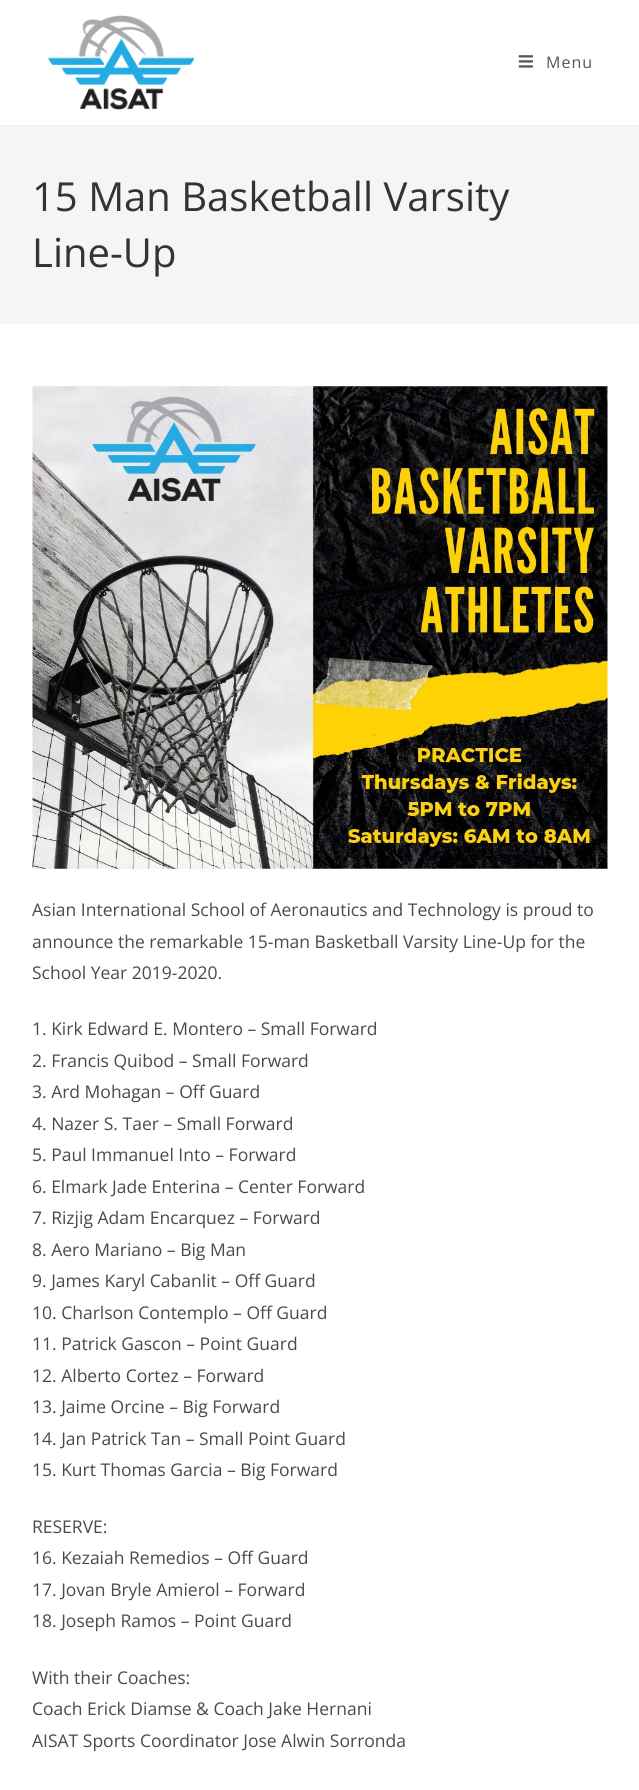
#include <cairo/cairo.h>
#include <math.h>
#include <stddef.h>

static cairo_t *cr;

static void use_color(int r, int g, int b) {
  cairo_set_source_rgb(cr, r / 255.0, g / 255.0, b / 255.0);
}

static void text(double x, double y, const char *s, const char *family, double size, int italic, int bold, int r, int g, int b) {
  cairo_select_font_face(cr, family, italic ? CAIRO_FONT_SLANT_ITALIC : CAIRO_FONT_SLANT_NORMAL,
    bold ? CAIRO_FONT_WEIGHT_BOLD : CAIRO_FONT_WEIGHT_NORMAL);
  cairo_set_font_size(cr, size);
  use_color(r, g, b);
  cairo_move_to(cr, x, y);
  cairo_show_text(cr, s);
}

static void spaced_text(double x, double y, const char *s, double letter, double word) {
  cairo_move_to(cr, x, y);
  while (*s) {
    char ch[5] = {0};
    int n = 0;
    do ch[n++] = *s++; while ((*s & 0xC0) == 0x80);
    cairo_show_text(cr, ch);
    cairo_rel_move_to(cr, letter + word * (*ch == ' '), 0);
  }
}

static void box(double x, double y, double w, double h, int r, int g, int b) {
  use_color(r, g, b);
  cairo_rectangle(cr, x, y, w, h);
  cairo_fill(cr);
}

static void picture(const char *path, double x, double y, double w, double h) {
  cairo_surface_t *image = cairo_image_surface_create_from_png(path);
  cairo_save(cr);
  cairo_set_source_surface(cr, image, x, y);
  cairo_rectangle(cr, x, y, w, h);
  cairo_fill(cr);
  cairo_restore(cr);
  cairo_surface_destroy(image);
}

static void draw(void) {
  use_color(255, 255, 255);
  cairo_paint(cr);
  box(0, 125, 639, 1, 241, 241, 241);
  picture("img_01.png", 48, 15, 147, 95);
  picture("img_02.png", 518, 55, 15, 13);
  box(0, 126, 639, 198, 245, 245, 245);
  picture("img_03.png", 32, 386, 576, 483);
  cairo_select_font_face(cr, "Open Sans", CAIRO_FONT_SLANT_NORMAL, CAIRO_FONT_WEIGHT_NORMAL);
  cairo_set_font_size(cr, 16);
  use_color(85, 85, 85);
  spaced_text(546, 68, "Menu", 1, 0);
  text(32, 211, "15 Man Basketball Varsity", "Open Sans", 40, 0, 0, 51, 51, 51);
  text(32, 267, "Line-Up", "Open Sans", 40, 0, 0, 51, 51, 51);
  text(32, 916, "Asian International School of Aeronautics and Technology is proud to", "Open Sans", 17.5, 0, 0, 74, 74, 74);
  text(32, 948, "announce the remarkable 15-man Basketball Varsity Line-Up for the", "Open Sans", 17.5, 0, 0, 74, 74, 74);
  text(32, 979, "School Year 2019-2020.", "Open Sans", 17.5, 0, 0, 74, 74, 74);
  text(32, 1035, "1. Kirk Edward E. Montero – Small Forward", "Open Sans", 17.5, 0, 0, 74, 74, 74);
  text(32, 1067, "2. Francis Quibod – Small Forward", "Open Sans", 17.5, 0, 0, 74, 74, 74);
  text(32, 1098, "3. Ard Mohagan – Off Guard", "Open Sans", 17.5, 0, 0, 74, 74, 74);
  text(32, 1130, "4. Nazer S. Taer – Small Forward", "Open Sans", 17.5, 0, 0, 74, 74, 74);
  text(32, 1161, "5. Paul Immanuel Into – Forward", "Open Sans", 17.5, 0, 0, 74, 74, 74);
  text(32, 1193, "6. Elmark Jade Enterina – Center Forward", "Open Sans", 17.5, 0, 0, 74, 74, 74);
  text(32, 1224, "7. Rizjig Adam Encarquez – Forward", "Open Sans", 17.5, 0, 0, 74, 74, 74);
  text(32, 1256, "8. Aero Mariano – Big Man", "Open Sans", 17.5, 0, 0, 74, 74, 74);
  text(32, 1287, "9. James Karyl Cabanlit – Off Guard", "Open Sans", 17.5, 0, 0, 74, 74, 74);
  text(32, 1319, "10. Charlson Contemplo – Off Guard", "Open Sans", 17.5, 0, 0, 74, 74, 74);
  text(32, 1350, "11. Patrick Gascon – Point Guard", "Open Sans", 17.5, 0, 0, 74, 74, 74);
  text(32, 1382, "12. Alberto Cortez – Forward", "Open Sans", 17.5, 0, 0, 74, 74, 74);
  text(32, 1413, "13. Jaime Orcine – Big Forward", "Open Sans", 17.5, 0, 0, 74, 74, 74);
  text(32, 1445, "14. Jan Patrick Tan – Small Point Guard", "Open Sans", 17.5, 0, 0, 74, 74, 74);
  text(32, 1476, "15. Kurt Thomas Garcia – Big Forward", "Open Sans", 17.5, 0, 0, 74, 74, 74);
  text(32, 1533, "RESERVE:", "Open Sans", 17.5, 0, 0, 74, 74, 74);
  text(32, 1564, "16. Kezaiah Remedios – Off Guard", "Open Sans", 17.5, 0, 0, 74, 74, 74);
  text(32, 1596, "17. Jovan Bryle Amierol – Forward", "Open Sans", 17.5, 0, 0, 74, 74, 74);
  text(32, 1627, "18. Joseph Ramos – Point Guard", "Open Sans", 17.5, 0, 0, 74, 74, 74);
  text(32, 1684, "With their Coaches:", "Open Sans", 17.5, 0, 0, 74, 74, 74);
  text(32, 1715, "Coach Erick Diamse & Coach Jake Hernani", "Open Sans", 17.5, 0, 0, 74, 74, 74);
  text(32, 1747, "AISAT Sports Coordinator Jose Alwin Sorronda", "Open Sans", 17.5, 0, 0, 74, 74, 74);
}

int main(void) {
  cairo_surface_t *surface = cairo_image_surface_create(CAIRO_FORMAT_RGB24, 639, 1790);
  cr = cairo_create(surface);
  cairo_font_options_t *options = cairo_font_options_create();
  cairo_font_options_set_hint_metrics(options, CAIRO_HINT_METRICS_OFF);
  cairo_font_options_set_hint_style(options, CAIRO_HINT_STYLE_NONE);
  cairo_set_font_options(cr, options);
  cairo_set_miter_limit(cr, 4);
  draw();
  cairo_surface_write_to_png(surface, "out.png");
  cairo_font_options_destroy(options);
  cairo_destroy(cr);
  cairo_surface_destroy(surface);
  return 0;
}
